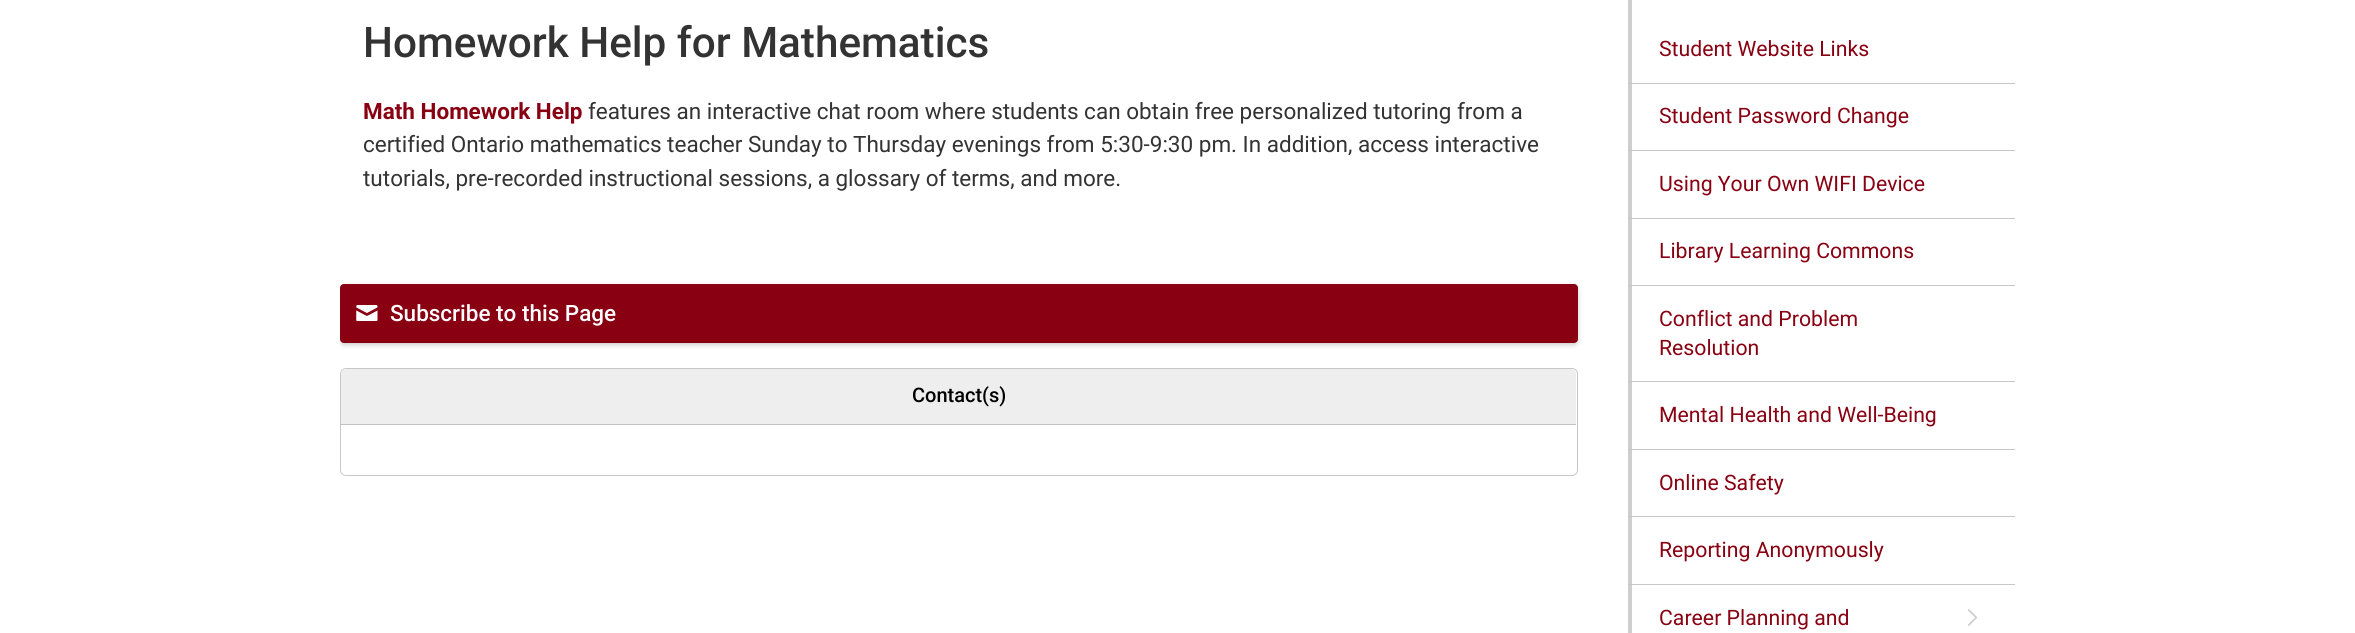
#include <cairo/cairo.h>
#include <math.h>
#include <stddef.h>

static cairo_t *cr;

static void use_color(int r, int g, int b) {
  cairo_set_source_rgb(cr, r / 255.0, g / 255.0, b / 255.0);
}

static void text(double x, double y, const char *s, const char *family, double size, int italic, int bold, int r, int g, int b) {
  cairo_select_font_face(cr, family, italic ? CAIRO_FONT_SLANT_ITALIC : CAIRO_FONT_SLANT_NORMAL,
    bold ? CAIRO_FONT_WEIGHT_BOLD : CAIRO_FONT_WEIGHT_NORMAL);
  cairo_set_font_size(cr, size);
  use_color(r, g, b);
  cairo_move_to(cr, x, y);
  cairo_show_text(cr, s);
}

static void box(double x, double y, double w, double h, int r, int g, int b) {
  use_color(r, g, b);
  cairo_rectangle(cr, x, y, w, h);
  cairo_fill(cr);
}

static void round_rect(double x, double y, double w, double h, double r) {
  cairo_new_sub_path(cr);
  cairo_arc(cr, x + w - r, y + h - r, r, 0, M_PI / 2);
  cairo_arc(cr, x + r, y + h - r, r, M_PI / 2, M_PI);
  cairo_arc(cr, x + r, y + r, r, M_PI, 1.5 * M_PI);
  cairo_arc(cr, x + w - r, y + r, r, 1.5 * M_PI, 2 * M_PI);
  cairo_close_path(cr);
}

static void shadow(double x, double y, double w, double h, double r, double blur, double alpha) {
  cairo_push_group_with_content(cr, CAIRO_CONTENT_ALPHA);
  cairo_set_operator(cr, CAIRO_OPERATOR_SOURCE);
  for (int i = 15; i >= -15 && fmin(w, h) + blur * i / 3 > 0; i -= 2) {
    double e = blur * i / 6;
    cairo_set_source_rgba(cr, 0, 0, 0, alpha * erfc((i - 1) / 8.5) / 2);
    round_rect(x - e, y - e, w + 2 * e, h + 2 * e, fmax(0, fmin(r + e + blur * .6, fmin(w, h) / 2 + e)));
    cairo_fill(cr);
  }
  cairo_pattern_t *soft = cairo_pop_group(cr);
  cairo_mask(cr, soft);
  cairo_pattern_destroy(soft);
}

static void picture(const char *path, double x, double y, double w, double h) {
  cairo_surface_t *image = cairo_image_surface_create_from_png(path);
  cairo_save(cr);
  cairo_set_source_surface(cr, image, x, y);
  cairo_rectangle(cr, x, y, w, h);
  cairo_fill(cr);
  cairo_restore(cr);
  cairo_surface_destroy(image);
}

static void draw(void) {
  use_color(255, 255, 255);
  cairo_paint(cr);
  cairo_save(cr);
  cairo_rectangle(cr, 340, 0, 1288, 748);
  cairo_clip(cr);
  use_color(0, 0, 0);
  shadow(340, 286, 1238, 59, 4, 2.5, 0.2);
  cairo_restore(cr);
  use_color(136, 0, 17);
  round_rect(340, 284, 1238, 59, 4);
  cairo_fill(cr);
  picture("img_01.png", 356, 305, 22, 16);
  round_rect(340.5, 368.5, 1237, 107, 5.5);
  use_color(199, 199, 199);
  cairo_set_line_width(cr, 1);
  cairo_stroke(cr);
  use_color(238, 238, 238);
  cairo_new_path(cr);
  cairo_move_to(cr, 346, 369);
  cairo_line_to(cr, 1571, 369);
  cairo_curve_to(cr, 1574, 369, 1576, 371, 1576, 374);
  cairo_line_to(cr, 1576, 425);
  cairo_line_to(cr, 341, 425);
  cairo_line_to(cr, 341, 374);
  cairo_curve_to(cr, 341, 371, 343, 369, 346, 369);
  cairo_close_path(cr);
  cairo_fill(cr);
  box(341, 424, 1235, 1, 193, 193, 193);
  box(1628, 0, 4, 633, 206, 206, 206);
  box(1628, 83, 387, 1, 199, 199, 199);
  box(1628, 150, 387, 1, 199, 199, 199);
  box(1628, 218, 387, 1, 199, 199, 199);
  box(1628, 285, 387, 1, 199, 199, 199);
  box(1628, 381, 387, 1, 199, 199, 199);
  box(1628, 449, 387, 1, 199, 199, 199);
  box(1628, 516, 387, 1, 199, 199, 199);
  box(1628, 584, 387, 1, 199, 199, 199);
  picture("img_02.png", 1968, 609, 10, 17);
  text(363, 57, "Homework Help for Mathematics", "Roboto Medium", 42.25, 0, 0, 51, 51, 51);
  text(363, 119, "Math Homework Help", "Roboto", 22.5, 0, 1, 136, 0, 17);
  text(588, 119, "features an interactive chat room where students can obtain free personalized tutoring from a", "Roboto", 22.5, 0, 0, 51, 51, 51);
  text(363, 152, "certified Ontario mathematics teacher Sunday to Thursday evenings from 5:30-9:30 pm. In addition, access interactive", "Roboto", 22.5, 0, 0, 51, 51, 51);
  text(363, 186, "tutorials, pre-recorded instructional sessions, a glossary of terms, and more.", "Roboto", 22.5, 0, 0, 51, 51, 51);
  text(390, 321, "Subscribe to this Page", "Roboto Medium", 22.5, 0, 0, 255, 255, 255);
  text(912, 402, "Contact(s)", "Roboto Medium", 20, 0, 0, 0, 0, 0);
  text(1659, 56, "Student Website Links", "Roboto", 21.25, 0, 0, 136, 0, 17);
  text(1659, 123, "Student Password Change", "Roboto", 21.25, 0, 0, 136, 0, 17);
  text(1659, 191, "Using Your Own WIFI Device", "Roboto", 21.25, 0, 0, 136, 0, 17);
  text(1659, 258, "Library Learning Commons", "Roboto", 21.25, 0, 0, 136, 0, 17);
  text(1659, 326, "Conflict and Problem", "Roboto", 21.25, 0, 0, 136, 0, 17);
  text(1659, 355, "Resolution", "Roboto", 21.25, 0, 0, 136, 0, 17);
  text(1659, 422, "Mental Health and Well-Being", "Roboto", 21.25, 0, 0, 136, 0, 17);
  text(1659, 490, "Online Safety", "Roboto", 21.25, 0, 0, 136, 0, 17);
  text(1659, 557, "Reporting Anonymously", "Roboto", 21.25, 0, 0, 136, 0, 17);
  text(1659, 625, "Career Planning and", "Roboto", 21.25, 0, 0, 136, 0, 17);
}

int main(void) {
  cairo_surface_t *surface = cairo_image_surface_create(CAIRO_FORMAT_RGB24, 2355, 633);
  cr = cairo_create(surface);
  cairo_font_options_t *options = cairo_font_options_create();
  cairo_font_options_set_hint_metrics(options, CAIRO_HINT_METRICS_OFF);
  cairo_font_options_set_hint_style(options, CAIRO_HINT_STYLE_NONE);
  cairo_set_font_options(cr, options);
  cairo_set_miter_limit(cr, 4);
  draw();
  cairo_surface_write_to_png(surface, "out.png");
  cairo_font_options_destroy(options);
  cairo_destroy(cr);
  cairo_surface_destroy(surface);
  return 0;
}
